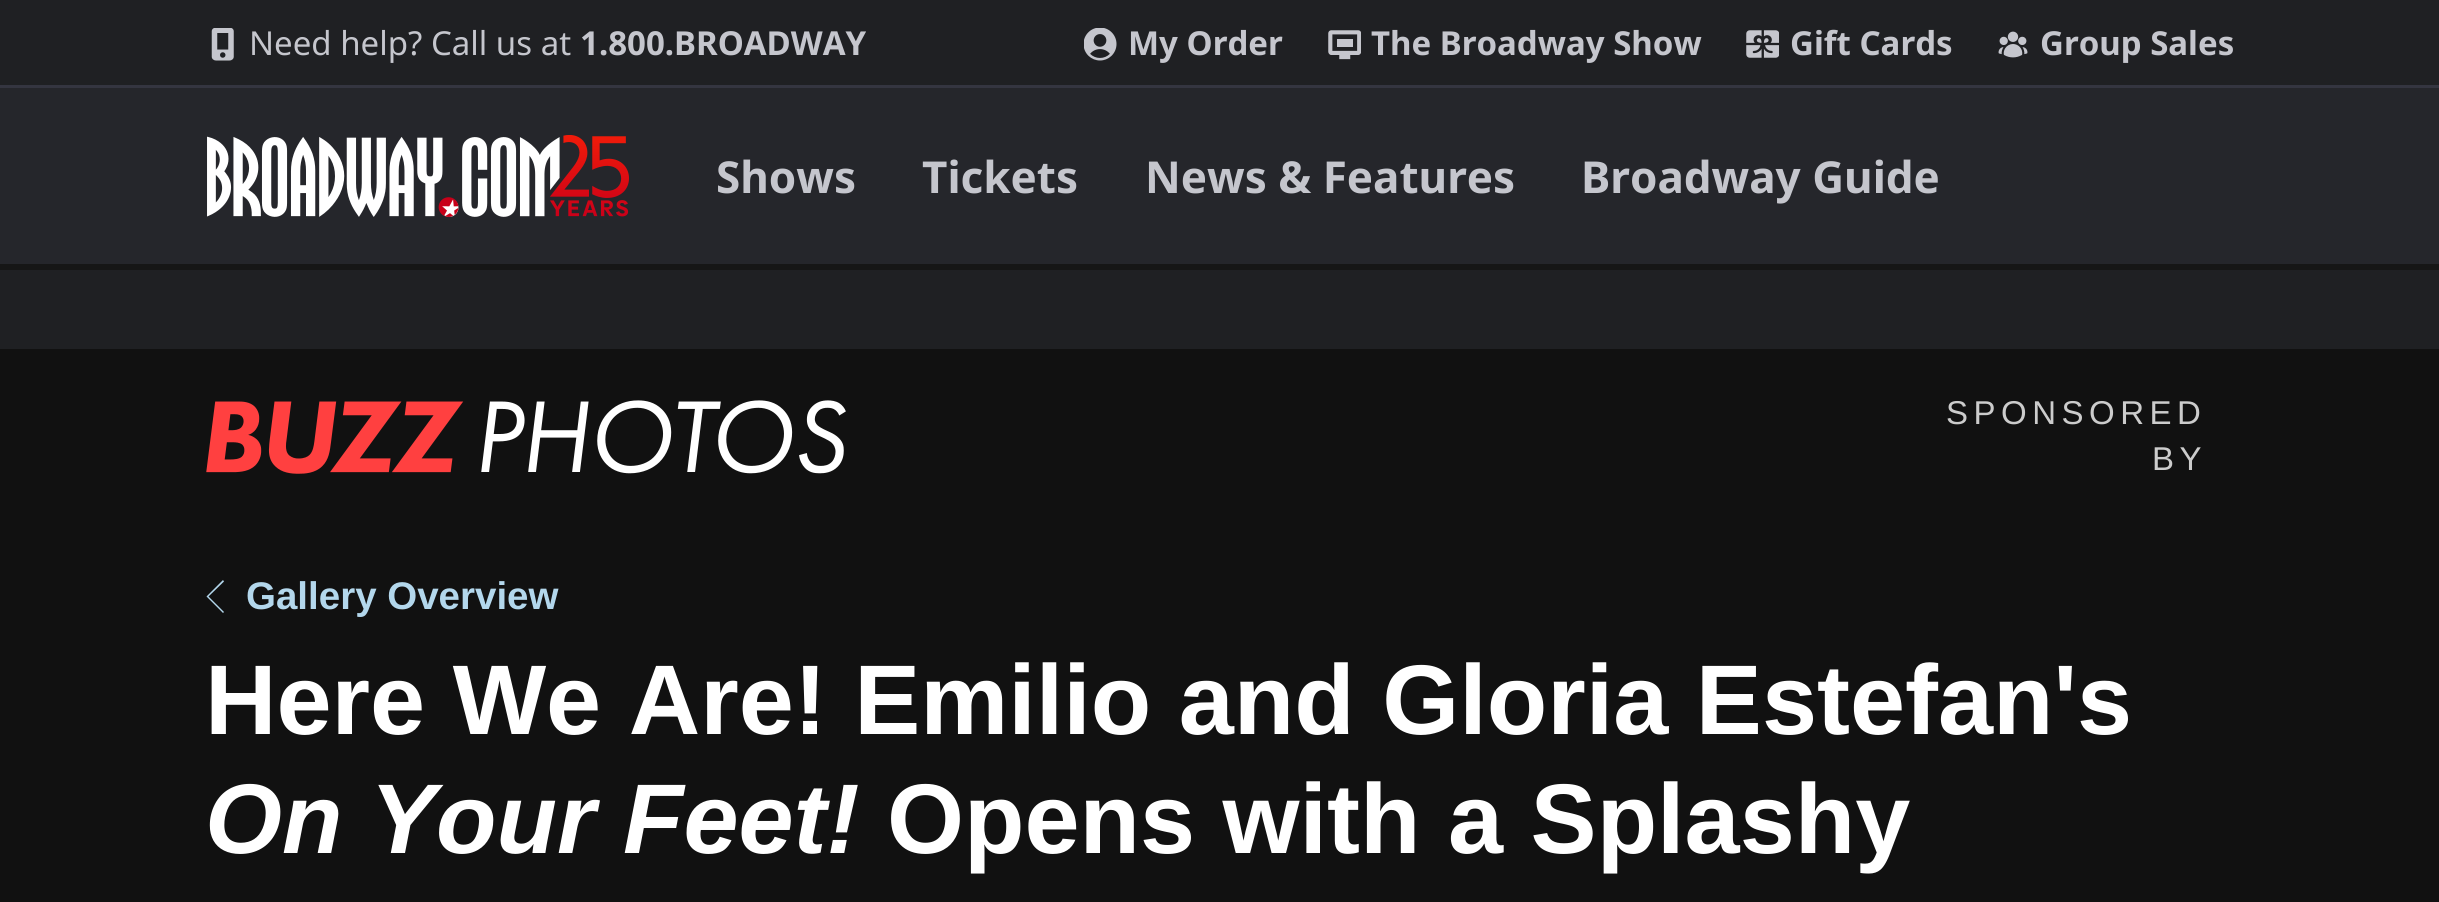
#include <cairo/cairo.h>
#include <math.h>
#include <stddef.h>

static cairo_t *cr;

static void use_color(int r, int g, int b) {
  cairo_set_source_rgb(cr, r / 255.0, g / 255.0, b / 255.0);
}

static void text(double x, double y, const char *s, const char *family, double size, int italic, int bold, int r, int g, int b) {
  cairo_select_font_face(cr, family, italic ? CAIRO_FONT_SLANT_ITALIC : CAIRO_FONT_SLANT_NORMAL,
    bold ? CAIRO_FONT_WEIGHT_BOLD : CAIRO_FONT_WEIGHT_NORMAL);
  cairo_set_font_size(cr, size);
  use_color(r, g, b);
  cairo_move_to(cr, x, y);
  cairo_show_text(cr, s);
}

static void spaced_text(double x, double y, const char *s, double letter, double word) {
  cairo_move_to(cr, x, y);
  while (*s) {
    char ch[5] = {0};
    int n = 0;
    do ch[n++] = *s++; while ((*s & 0xC0) == 0x80);
    cairo_show_text(cr, ch);
    cairo_rel_move_to(cr, letter + word * (*ch == ' '), 0);
  }
}

static void box(double x, double y, double w, double h, int r, int g, int b) {
  use_color(r, g, b);
  cairo_rectangle(cr, x, y, w, h);
  cairo_fill(cr);
}

static void picture(const char *path, double x, double y, double w, double h) {
  cairo_surface_t *image = cairo_image_surface_create_from_png(path);
  cairo_save(cr);
  cairo_set_source_surface(cr, image, x, y);
  cairo_rectangle(cr, x, y, w, h);
  cairo_fill(cr);
  cairo_restore(cr);
  cairo_surface_destroy(image);
}

static void draw(void) {
  use_color(17, 17, 17);
  cairo_paint(cr);
  box(0, 88, 2439, 176, 37, 38, 43);
  box(0, 0, 2439, 85, 31, 32, 35);
  box(0, 85, 2439, 3, 52, 53, 64);
  picture("img_01.png", 211, 28, 23, 33);
  picture("img_02.png", 1084, 28, 33, 33);
  picture("img_03.png", 1328, 30, 33, 30);
  picture("img_04.png", 1746, 30, 33, 28);
  picture("img_05.png", 1998, 31, 30, 27);
  box(0, 264, 2439, 6, 22, 22, 22);
  picture("img_06.png", 207, 135, 422, 82);
  box(0, 270, 2439, 79, 31, 32, 35);
  picture("img_07.png", 206, 400, 640, 74);
  use_color(179, 215, 236);
  cairo_set_fill_rule(cr, CAIRO_FILL_RULE_EVEN_ODD);
  cairo_new_path(cr);
  cairo_move_to(cr, 207.5, 595.5);
  cairo_line_to(cr, 206.5, 596.5);
  cairo_line_to(cr, 223, 613);
  cairo_line_to(cr, 224, 612);
  cairo_line_to(cr, 208.5, 596.5);
  cairo_line_to(cr, 224, 581.5);
  cairo_line_to(cr, 223, 580);
  cairo_close_path(cr);
  cairo_fill(cr);
  text(249, 55, "Need help? Call us at", "Noto Sans", 33, 0, 0, 197, 198, 205);
  text(580, 55, "1.800.BROADWAY", "Noto Sans", 33, 0, 1, 197, 198, 205);
  text(1128, 55, "My Order", "Noto Sans", 33, 0, 1, 197, 198, 205);
  text(1371, 55, "The Broadway Show", "Noto Sans", 33, 0, 1, 197, 198, 205);
  text(1790, 55, "Gift Cards", "Noto Sans", 33, 0, 1, 197, 198, 205);
  text(2040, 55, "Group Sales", "Noto Sans", 33, 0, 1, 197, 198, 205);
  text(716, 193, "Shows", "Noto Sans", 44, 0, 1, 197, 198, 205);
  text(922, 193, "Tickets", "Noto Sans", 44, 0, 1, 197, 198, 205);
  text(1145, 193, "News & Features", "Noto Sans", 44, 0, 1, 197, 198, 205);
  text(1581, 193, "Broadway Guide", "Noto Sans", 44, 0, 1, 197, 198, 205);
  cairo_select_font_face(cr, "Liberation Sans", CAIRO_FONT_SLANT_NORMAL, CAIRO_FONT_WEIGHT_NORMAL);
  cairo_set_font_size(cr, 33);
  use_color(204, 204, 204);
  spaced_text(1946, 424, "SPONSORED", 5.5, 0);
  spaced_text(2152, 470, "BY", 5.5, 0);
  text(246, 609, "Gallery Overview", "Liberation Sans", 38.5, 0, 1, 179, 215, 236);
  text(205, 734, "Here We Are! Emilio and Gloria Estefan's", "Liberation Sans", 99, 0, 1, 255, 255, 255);
  text(205, 853, "On Your Feet!", "Liberation Sans", 99, 1, 1, 255, 255, 255);
  text(887, 853, "Opens with a Splashy", "Liberation Sans", 99, 0, 1, 255, 255, 255);
}

int main(void) {
  cairo_surface_t *surface = cairo_image_surface_create(CAIRO_FORMAT_RGB24, 2439, 902);
  cr = cairo_create(surface);
  cairo_font_options_t *options = cairo_font_options_create();
  cairo_font_options_set_hint_metrics(options, CAIRO_HINT_METRICS_OFF);
  cairo_font_options_set_hint_style(options, CAIRO_HINT_STYLE_NONE);
  cairo_set_font_options(cr, options);
  cairo_set_miter_limit(cr, 4);
  draw();
  cairo_surface_write_to_png(surface, "out.png");
  cairo_font_options_destroy(options);
  cairo_destroy(cr);
  cairo_surface_destroy(surface);
  return 0;
}
